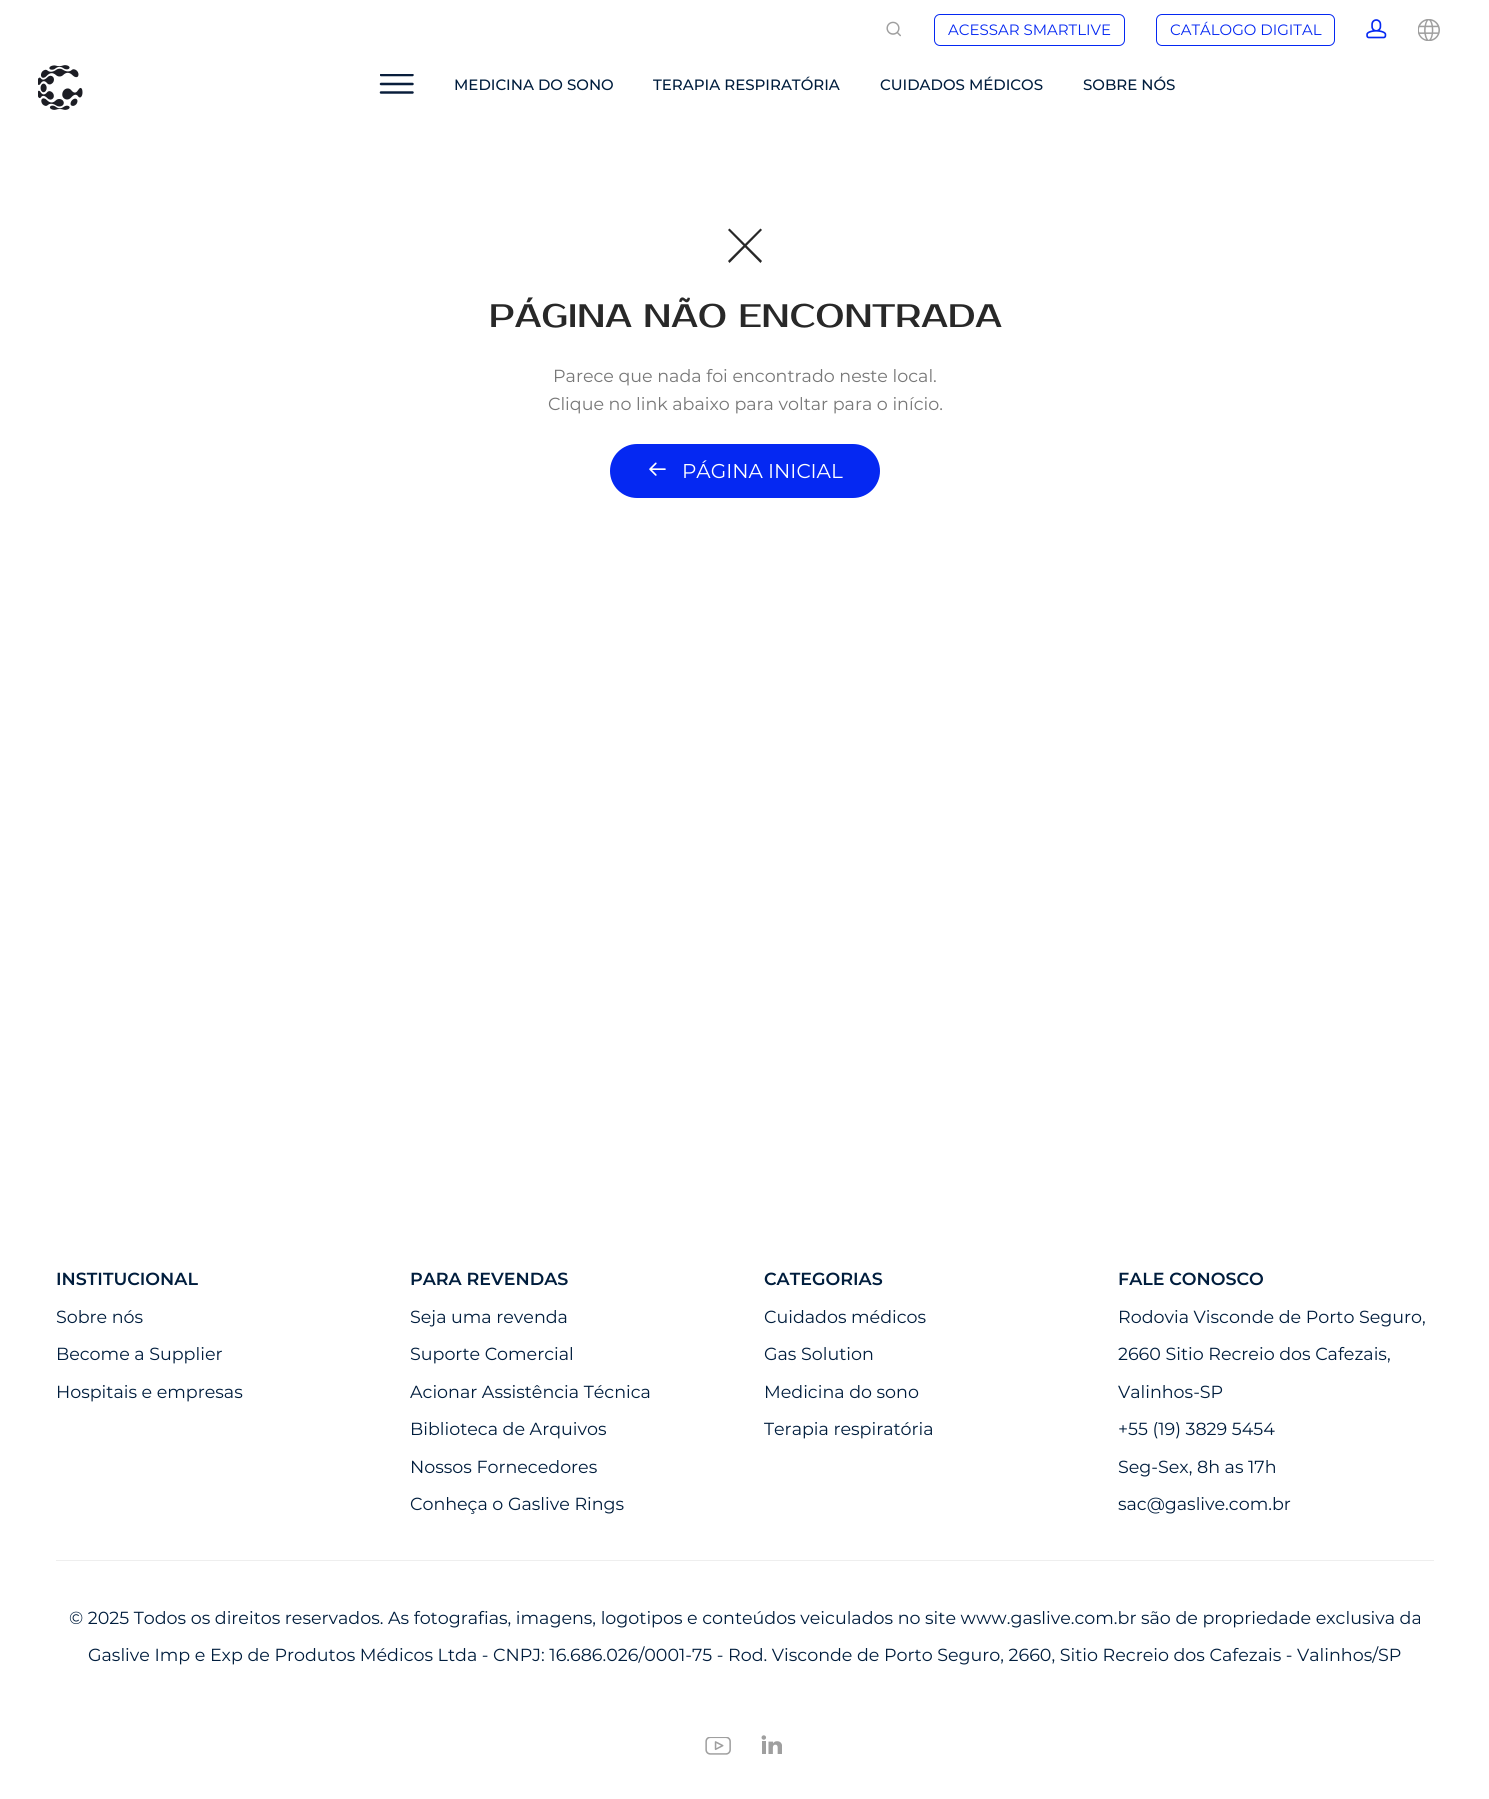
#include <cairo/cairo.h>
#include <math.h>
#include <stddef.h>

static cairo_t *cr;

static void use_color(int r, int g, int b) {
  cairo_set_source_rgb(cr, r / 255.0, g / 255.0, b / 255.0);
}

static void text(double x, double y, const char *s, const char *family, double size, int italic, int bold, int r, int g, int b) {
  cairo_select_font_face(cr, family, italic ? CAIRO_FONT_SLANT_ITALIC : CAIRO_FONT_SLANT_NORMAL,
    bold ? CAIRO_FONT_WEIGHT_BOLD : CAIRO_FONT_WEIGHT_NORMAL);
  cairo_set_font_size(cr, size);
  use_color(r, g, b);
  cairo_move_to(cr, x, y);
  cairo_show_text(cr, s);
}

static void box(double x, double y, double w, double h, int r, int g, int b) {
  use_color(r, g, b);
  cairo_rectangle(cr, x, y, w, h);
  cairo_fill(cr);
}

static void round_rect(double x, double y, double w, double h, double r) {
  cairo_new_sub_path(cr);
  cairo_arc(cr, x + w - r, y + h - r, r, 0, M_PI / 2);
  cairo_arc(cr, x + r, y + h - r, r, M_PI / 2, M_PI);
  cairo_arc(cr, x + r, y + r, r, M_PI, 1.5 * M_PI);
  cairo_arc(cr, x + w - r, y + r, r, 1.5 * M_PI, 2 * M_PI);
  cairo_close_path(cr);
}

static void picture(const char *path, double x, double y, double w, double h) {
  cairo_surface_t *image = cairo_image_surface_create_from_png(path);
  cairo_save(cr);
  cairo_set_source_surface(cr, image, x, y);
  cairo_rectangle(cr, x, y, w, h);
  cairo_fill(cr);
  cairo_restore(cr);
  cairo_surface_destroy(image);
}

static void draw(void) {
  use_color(255, 255, 255);
  cairo_paint(cr);
  picture("img_01.png", 886, 21, 15, 16);
  round_rect(934.5, 14.5, 190, 31, 5.5);
  use_color(5, 40, 242);
  cairo_set_line_width(cr, 1);
  cairo_stroke(cr);
  round_rect(1156.5, 14.5, 178, 31, 5.5);
  cairo_stroke(cr);
  picture("img_02.png", 1366, 19, 21, 20);
  picture("img_03.png", 1418, 19, 22, 22);
  picture("img_04.png", 38, 65, 45, 45);
  cairo_save(cr);
  cairo_rectangle(cr, 380, 74, 34, 20);
  cairo_clip(cr);
  cairo_new_path(cr);
  cairo_move_to(cr, 381, 75);
  cairo_line_to(cr, 412.5, 75);
  use_color(8, 29, 59);
  cairo_set_line_width(cr, 2.5);
  cairo_set_line_cap(cr, CAIRO_LINE_CAP_ROUND);
  cairo_stroke(cr);
  cairo_restore(cr);
  cairo_new_path(cr);
  cairo_move_to(cr, 381, 92.5);
  cairo_line_to(cr, 412.5, 92.5);
  cairo_move_to(cr, 381, 84);
  cairo_line_to(cr, 412.5, 84);
  use_color(8, 29, 59);
  cairo_set_line_width(cr, 2.5);
  cairo_set_line_cap(cr, CAIRO_LINE_CAP_ROUND);
  cairo_stroke(cr);
  use_color(40, 40, 40);
  cairo_new_path(cr);
  cairo_move_to(cr, 729.5, 228.5);
  cairo_line_to(cr, 762, 261);
  cairo_line_to(cr, 760.5, 263);
  cairo_line_to(cr, 728, 230);
  cairo_close_path(cr);
  cairo_fill(cr);
  cairo_new_path(cr);
  cairo_move_to(cr, 728, 261);
  cairo_line_to(cr, 760.5, 228.5);
  cairo_line_to(cr, 762, 230);
  cairo_line_to(cr, 729.5, 263);
  cairo_close_path(cr);
  cairo_fill(cr);
  use_color(5, 40, 242);
  round_rect(610, 444, 270, 54, 27);
  cairo_fill(cr);
  picture("img_05.png", 649, 462, 17, 14);
  box(56, 1560, 1378, 1, 238, 238, 238);
  picture("img_06.png", 705, 1737, 26, 18);
  picture("img_07.png", 761, 1735, 21, 19);
  text(948, 35, "ACESSAR SMARTLIVE", "Montserrat", 15, 0, 0, 5, 40, 242);
  text(1170, 35, "CATÁLOGO DIGITAL", "Montserrat", 15, 0, 0, 5, 40, 242);
  text(454, 90, "MEDICINA DO SONO", "Montserrat Medium", 15, 0, 0, 0, 29, 61);
  text(653, 90, "TERAPIA RESPIRATÓRIA", "Montserrat Medium", 15, 0, 0, 0, 29, 61);
  text(880, 90, "CUIDADOS MÉDICOS", "Montserrat Medium", 15, 0, 0, 0, 29, 61);
  text(1083, 90, "SOBRE NÓS", "Montserrat Medium", 15, 0, 0, 0, 29, 61);
  text(489, 327, "PÁGINA NÃO ENCONTRADA", "Prosto One", 32.5, 0, 0, 40, 40, 40);
  text(553, 382, "Parece que nada foi encontrado neste local.", "Montserrat", 17.5, 0, 0, 119, 119, 119);
  text(548, 410, "Clique no link abaixo para voltar para o início.", "Montserrat", 17.5, 0, 0, 119, 119, 119);
  text(682, 478, "PÁGINA INICIAL", "Montserrat", 20, 0, 0, 255, 255, 255);
  text(56, 1285, "INSTITUCIONAL", "Montserrat SemiBold", 17.5, 0, 0, 0, 29, 61);
  text(56, 1323, "Sobre nós", "Montserrat", 17.5, 0, 0, 0, 29, 61);
  text(56, 1360, "Become a Supplier", "Montserrat", 17.5, 0, 0, 0, 29, 61);
  text(56, 1398, "Hospitais e empresas", "Montserrat", 17.5, 0, 0, 0, 29, 61);
  text(410, 1285, "PARA REVENDAS", "Montserrat SemiBold", 17.5, 0, 0, 0, 29, 61);
  text(410, 1323, "Seja uma revenda", "Montserrat", 17.5, 0, 0, 0, 29, 61);
  text(410, 1360, "Suporte Comercial", "Montserrat", 17.5, 0, 0, 0, 29, 61);
  text(410, 1398, "Acionar Assistência Técnica", "Montserrat", 17.5, 0, 0, 0, 29, 61);
  text(410, 1435, "Biblioteca de Arquivos", "Montserrat", 17.5, 0, 0, 0, 29, 61);
  text(410, 1473, "Nossos Fornecedores", "Montserrat", 17.5, 0, 0, 0, 29, 61);
  text(410, 1510, "Conheça o Gaslive Rings", "Montserrat", 17.5, 0, 0, 0, 29, 61);
  text(764, 1285, "CATEGORIAS", "Montserrat SemiBold", 17.5, 0, 0, 0, 29, 61);
  text(764, 1323, "Cuidados médicos", "Montserrat", 17.5, 0, 0, 0, 29, 61);
  text(764, 1360, "Gas Solution", "Montserrat", 17.5, 0, 0, 0, 29, 61);
  text(764, 1398, "Medicina do sono", "Montserrat", 17.5, 0, 0, 0, 29, 61);
  text(764, 1435, "Terapia respiratória", "Montserrat", 17.5, 0, 0, 0, 29, 61);
  text(1118, 1285, "FALE CONOSCO", "Montserrat SemiBold", 17.5, 0, 0, 0, 29, 61);
  text(1118, 1323, "Rodovia Visconde de Porto Seguro,", "Montserrat", 17.5, 0, 0, 0, 29, 61);
  text(1118, 1360, "2660 Sitio Recreio dos Cafezais,", "Montserrat", 17.5, 0, 0, 0, 29, 61);
  text(1118, 1398, "Valinhos-SP", "Montserrat", 17.5, 0, 0, 0, 29, 61);
  text(1118, 1435, "+55 (19) 3829 5454", "Montserrat", 17.5, 0, 0, 0, 29, 61);
  text(1118, 1473, "Seg-Sex, 8h as 17h", "Montserrat", 17.5, 0, 0, 0, 29, 61);
  text(1118, 1510, "sac@gaslive.com.br", "Montserrat", 17.5, 0, 0, 0, 29, 61);
  text(69, 1624, "© 2025 Todos os direitos reservados. As fotografias, imagens, logotipos e conteúdos veiculados no site www.gaslive.com.br são de propriedade exclusiva da", "Montserrat", 17.5, 0, 0, 0, 29, 61);
  text(88, 1661, "Gaslive Imp e Exp de Produtos Médicos Ltda - CNPJ: 16.686.026/0001-75 - Rod. Visconde de Porto Seguro, 2660, Sitio Recreio dos Cafezais - Valinhos/SP", "Montserrat", 17.5, 0, 0, 0, 29, 61);
}

int main(void) {
  cairo_surface_t *surface = cairo_image_surface_create(CAIRO_FORMAT_RGB24, 1489, 1799);
  cr = cairo_create(surface);
  cairo_font_options_t *options = cairo_font_options_create();
  cairo_font_options_set_hint_metrics(options, CAIRO_HINT_METRICS_OFF);
  cairo_font_options_set_hint_style(options, CAIRO_HINT_STYLE_NONE);
  cairo_set_font_options(cr, options);
  cairo_set_miter_limit(cr, 4);
  draw();
  cairo_surface_write_to_png(surface, "out.png");
  cairo_font_options_destroy(options);
  cairo_destroy(cr);
  cairo_surface_destroy(surface);
  return 0;
}
